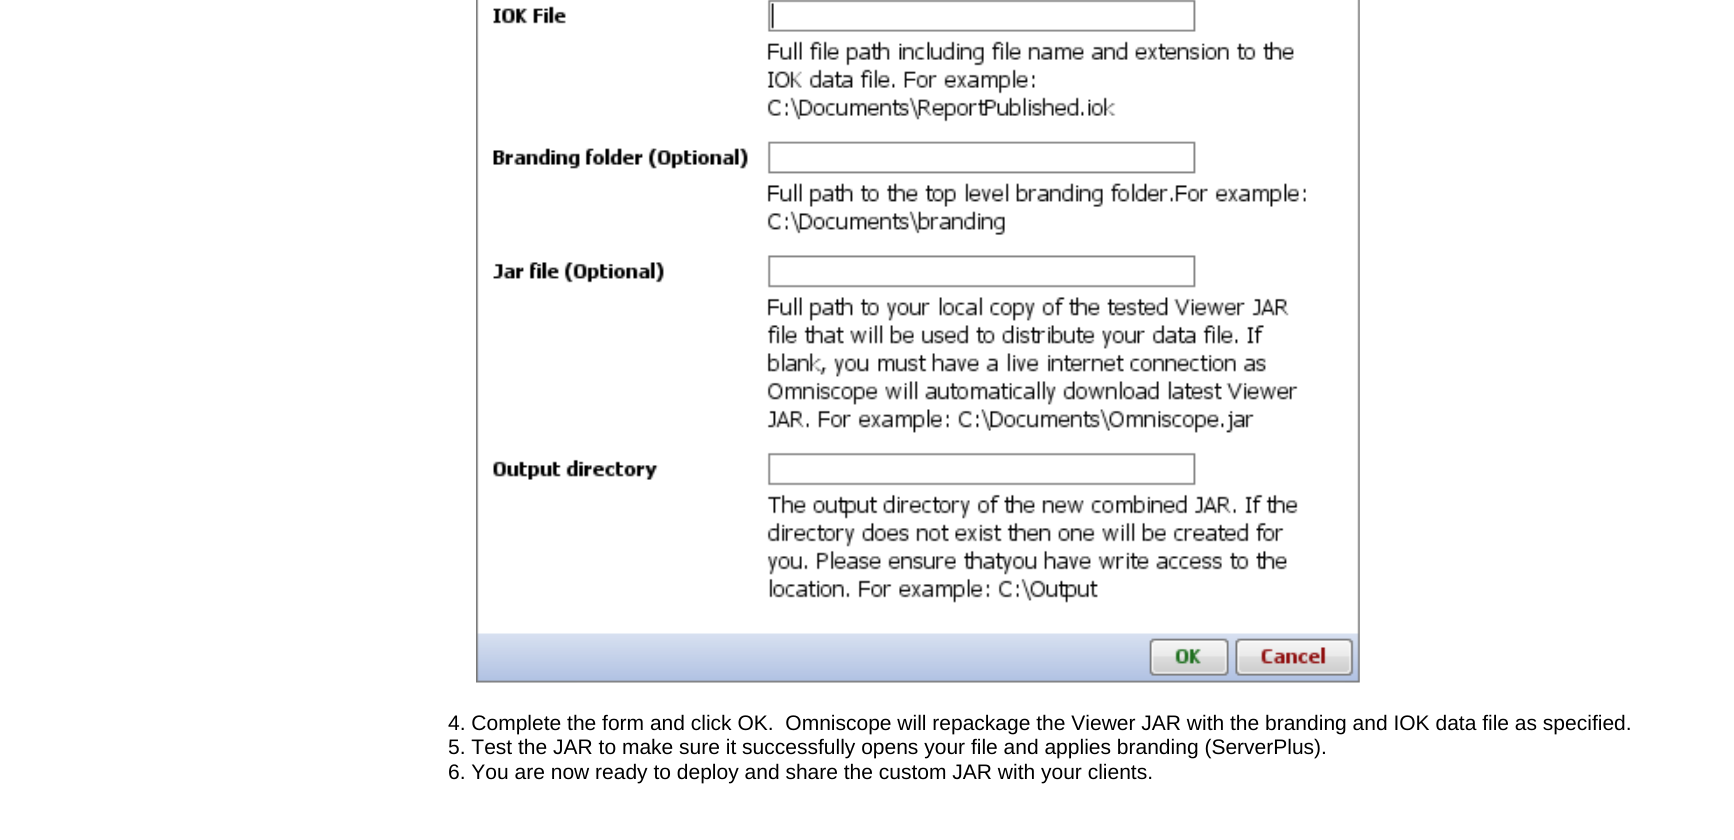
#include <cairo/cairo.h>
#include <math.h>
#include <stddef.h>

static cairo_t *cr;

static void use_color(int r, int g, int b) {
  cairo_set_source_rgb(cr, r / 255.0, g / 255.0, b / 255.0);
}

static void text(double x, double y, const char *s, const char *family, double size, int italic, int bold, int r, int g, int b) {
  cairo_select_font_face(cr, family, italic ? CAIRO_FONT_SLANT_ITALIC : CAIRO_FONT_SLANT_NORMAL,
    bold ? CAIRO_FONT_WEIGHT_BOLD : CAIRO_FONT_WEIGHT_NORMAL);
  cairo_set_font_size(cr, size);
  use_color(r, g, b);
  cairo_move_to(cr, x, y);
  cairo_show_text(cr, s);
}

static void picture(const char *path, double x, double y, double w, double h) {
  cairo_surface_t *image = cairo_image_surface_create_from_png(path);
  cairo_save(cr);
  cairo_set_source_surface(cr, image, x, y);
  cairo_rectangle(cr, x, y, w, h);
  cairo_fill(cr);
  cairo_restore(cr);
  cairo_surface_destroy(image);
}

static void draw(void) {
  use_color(255, 255, 255);
  cairo_paint(cr);
  picture("img_01.png", 476, 0, 884, 683);
  text(448, 730, "4. Complete the form and click OK.  Omniscope will repackage the Viewer JAR with the branding and IOK data file as specified.", "Liberation Sans", 21, 0, 0, 0, 0, 0);
  text(448, 754, "5. Test the JAR to make sure it successfully opens your file and applies branding (ServerPlus).", "Liberation Sans", 21, 0, 0, 0, 0, 0);
  text(448, 779, "6. You are now ready to deploy and share the custom JAR with your clients.", "Liberation Sans", 21, 0, 0, 0, 0, 0);
}

int main(void) {
  cairo_surface_t *surface = cairo_image_surface_create(CAIRO_FORMAT_RGB24, 1734, 840);
  cr = cairo_create(surface);
  cairo_font_options_t *options = cairo_font_options_create();
  cairo_font_options_set_hint_metrics(options, CAIRO_HINT_METRICS_OFF);
  cairo_font_options_set_hint_style(options, CAIRO_HINT_STYLE_NONE);
  cairo_set_font_options(cr, options);
  cairo_set_miter_limit(cr, 4);
  draw();
  cairo_surface_write_to_png(surface, "out.png");
  cairo_font_options_destroy(options);
  cairo_destroy(cr);
  cairo_surface_destroy(surface);
  return 0;
}
